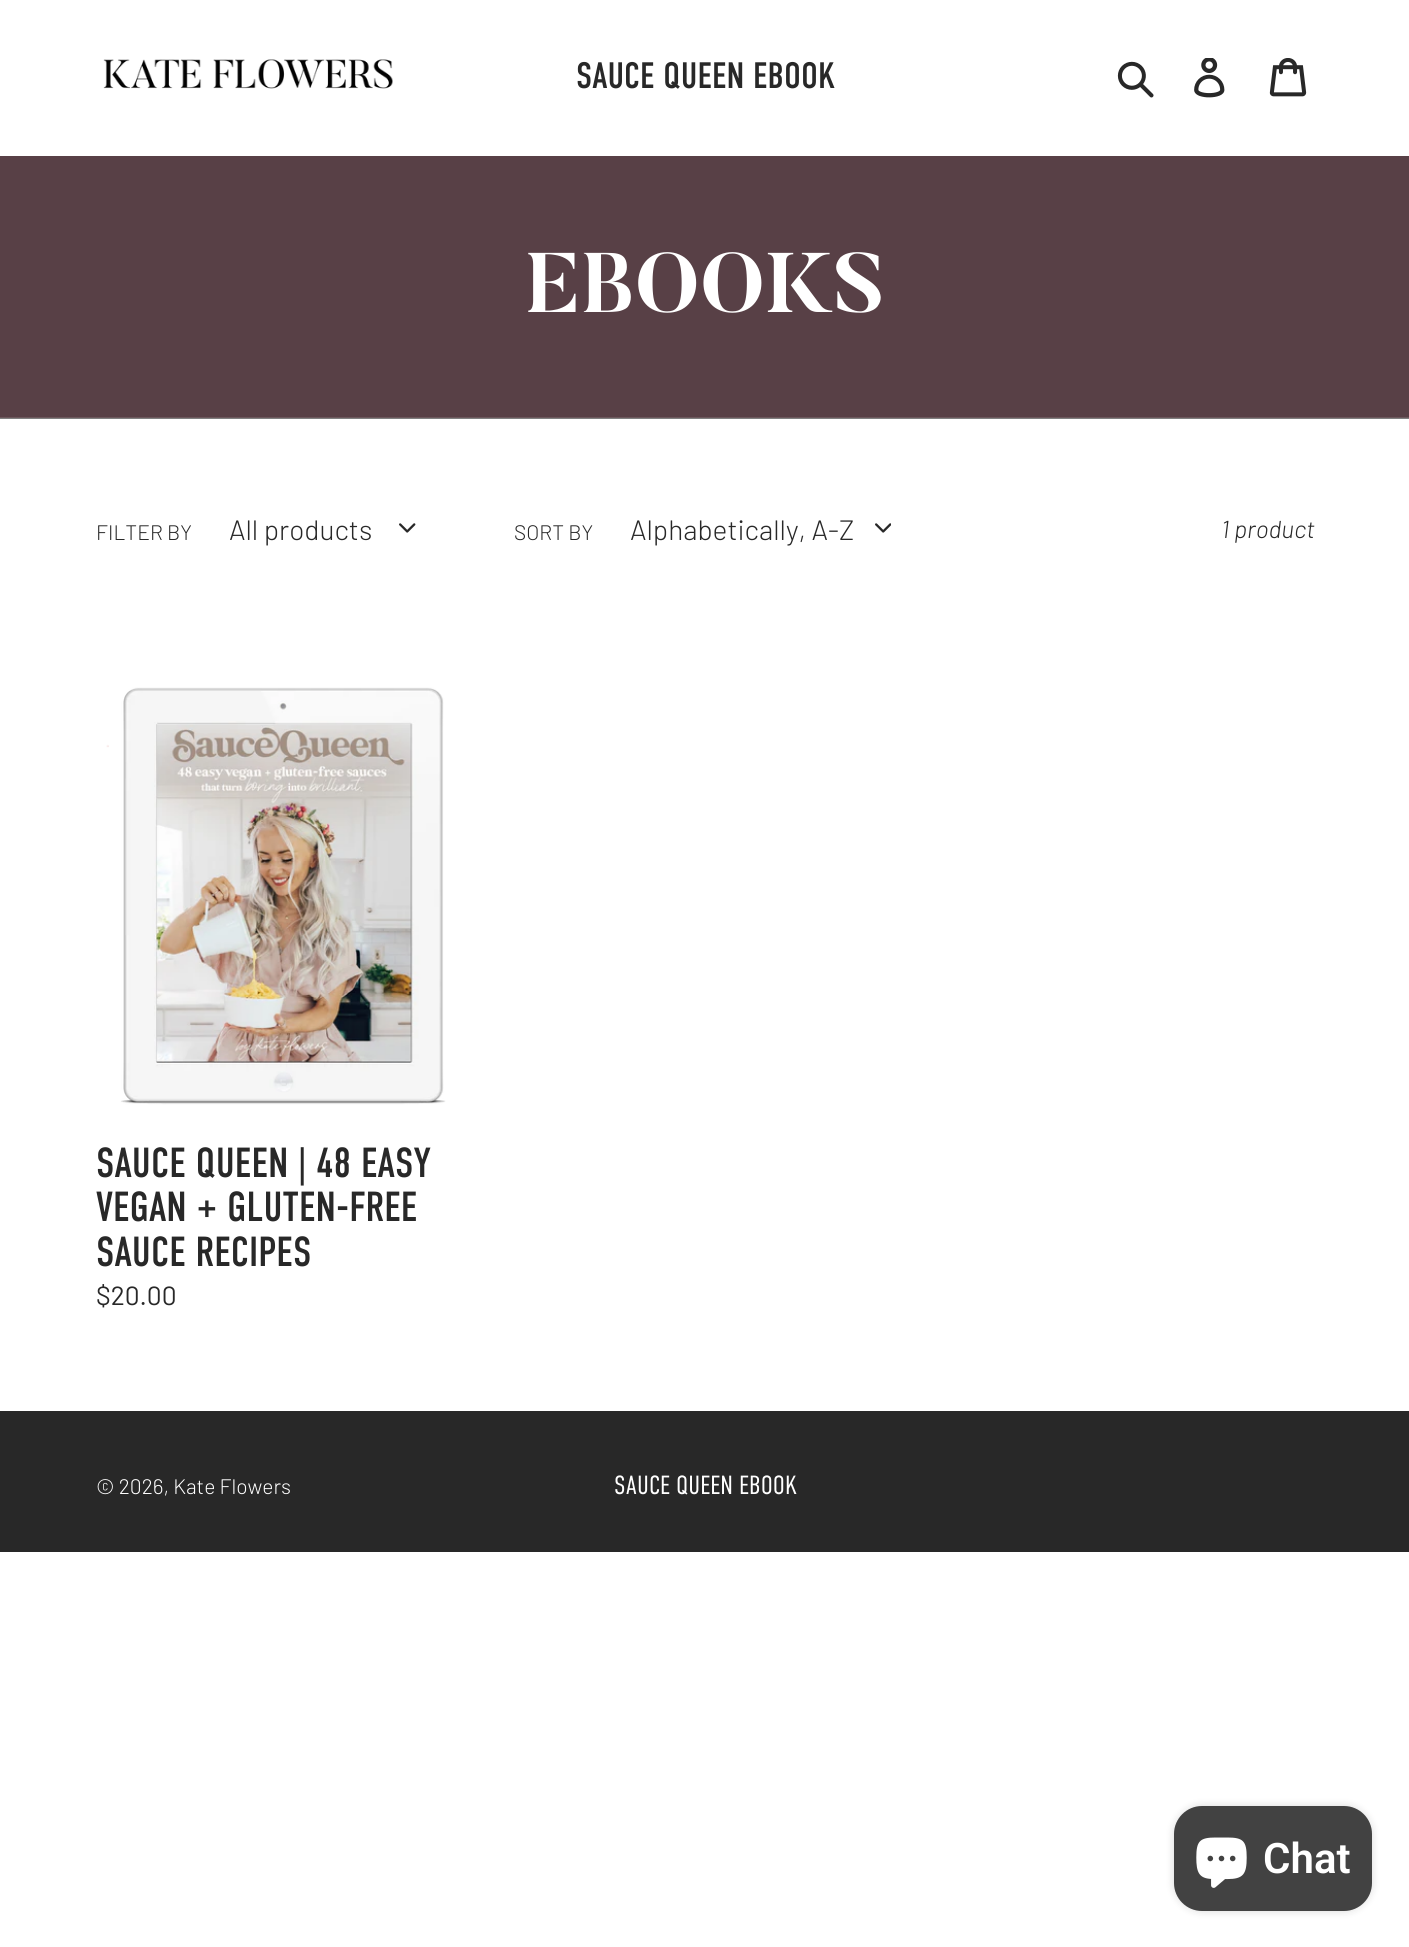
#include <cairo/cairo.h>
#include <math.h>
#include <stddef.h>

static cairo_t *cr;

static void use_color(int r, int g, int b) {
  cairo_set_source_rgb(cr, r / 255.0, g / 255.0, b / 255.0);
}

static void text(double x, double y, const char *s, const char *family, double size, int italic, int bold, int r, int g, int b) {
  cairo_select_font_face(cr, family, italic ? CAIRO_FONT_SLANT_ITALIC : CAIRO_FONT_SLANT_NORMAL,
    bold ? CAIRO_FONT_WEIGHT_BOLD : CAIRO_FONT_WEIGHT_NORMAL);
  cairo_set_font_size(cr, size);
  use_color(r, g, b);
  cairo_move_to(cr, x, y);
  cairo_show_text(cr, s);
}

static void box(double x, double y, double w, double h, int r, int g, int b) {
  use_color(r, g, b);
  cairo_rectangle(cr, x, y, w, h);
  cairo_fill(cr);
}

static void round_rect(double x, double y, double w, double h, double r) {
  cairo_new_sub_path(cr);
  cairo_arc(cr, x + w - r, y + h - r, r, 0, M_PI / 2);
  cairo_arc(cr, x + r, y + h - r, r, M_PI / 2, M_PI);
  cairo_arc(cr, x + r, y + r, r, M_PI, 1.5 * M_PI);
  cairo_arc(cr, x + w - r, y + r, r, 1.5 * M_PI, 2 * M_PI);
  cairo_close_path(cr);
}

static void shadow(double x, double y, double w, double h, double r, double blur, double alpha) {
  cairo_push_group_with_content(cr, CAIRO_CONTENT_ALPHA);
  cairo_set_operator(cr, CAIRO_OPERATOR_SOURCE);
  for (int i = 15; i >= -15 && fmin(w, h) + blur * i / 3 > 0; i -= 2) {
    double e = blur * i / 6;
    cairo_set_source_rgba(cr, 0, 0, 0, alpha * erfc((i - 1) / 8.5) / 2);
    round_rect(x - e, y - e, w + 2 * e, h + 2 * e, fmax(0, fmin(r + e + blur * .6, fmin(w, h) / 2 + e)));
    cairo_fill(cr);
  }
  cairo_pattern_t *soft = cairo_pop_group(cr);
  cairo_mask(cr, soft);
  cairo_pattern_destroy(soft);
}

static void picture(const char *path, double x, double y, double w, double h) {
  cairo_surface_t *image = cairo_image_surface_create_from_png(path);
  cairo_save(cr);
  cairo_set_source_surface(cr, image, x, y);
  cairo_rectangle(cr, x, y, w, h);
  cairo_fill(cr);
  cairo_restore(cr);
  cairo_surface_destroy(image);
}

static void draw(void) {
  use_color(255, 255, 255);
  cairo_paint(cr);
  picture("img_01.png", 103, 59, 290, 30);
  picture("img_02.png", 1117, 61, 37, 37);
  picture("img_03.png", 1194, 58, 31, 40);
  picture("img_04.png", 1269, 58, 38, 39);
  picture("img_05.png", 0, 156, 1409, 263);
  picture("img_06.png", 399, 523, 17, 10);
  picture("img_07.png", 875, 523, 16, 10);
  picture("img_08.png", 106, 687, 340, 418);
  box(0, 1411, 1409, 141, 40, 40, 40);
  use_color(0, 0, 0);
  shadow(1174, 1806, 198, 105, 28, 4.5, 0.15);
  use_color(66, 66, 66);
  round_rect(1174, 1806, 198, 105, 28);
  cairo_fill(cr);
  picture("img_09.png", 1196, 1837, 51, 51);
  text(576, 88, "SAUCE QUEEN EBOOK", "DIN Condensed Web", 36.75, 0, 0, 40, 40, 40);
  text(526, 312, "EBOOKS", "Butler", 84, 0, 1, 255, 255, 255);
  text(96, 540, "FILTER BY", "Barlow Light", 21, 0, 0, 40, 40, 40);
  text(229, 540, "All products", "Barlow Light", 28, 0, 0, 40, 40, 40);
  text(514, 540, "SORT BY", "Barlow Light", 21, 0, 0, 40, 40, 40);
  text(630, 540, "Alphabetically, A-Z", "Barlow Light", 28, 0, 0, 40, 40, 40);
  text(1221, 538, "1 product", "Barlow Light", 24.5, 1, 0, 40, 40, 40);
  text(96, 1177, "SAUCE QUEEN | 48 EASY", "DIN Condensed Web", 42, 0, 0, 40, 40, 40);
  text(96, 1221, "VEGAN + GLUTEN-FREE", "DIN Condensed Web", 42, 0, 0, 40, 40, 40);
  text(96, 1266, "SAUCE RECIPES", "DIN Condensed Web", 42, 0, 0, 40, 40, 40);
  text(96, 1305, "$20.00", "Barlow", 26.25, 0, 0, 40, 40, 40);
  text(96, 1494, "© 2026, Kate Flowers", "Barlow Light", 21, 0, 0, 255, 255, 255);
  text(614, 1494, "SAUCE QUEEN EBOOK", "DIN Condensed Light", 26.25, 0, 0, 255, 255, 255);
  text(1263, 1873, "Chat", "Roboto SemiBold", 42, 0, 0, 255, 255, 255);
}

int main(void) {
  cairo_surface_t *surface = cairo_image_surface_create(CAIRO_FORMAT_RGB24, 1409, 1947);
  cr = cairo_create(surface);
  cairo_font_options_t *options = cairo_font_options_create();
  cairo_font_options_set_hint_metrics(options, CAIRO_HINT_METRICS_OFF);
  cairo_font_options_set_hint_style(options, CAIRO_HINT_STYLE_NONE);
  cairo_set_font_options(cr, options);
  cairo_set_miter_limit(cr, 4);
  draw();
  cairo_surface_write_to_png(surface, "out.png");
  cairo_font_options_destroy(options);
  cairo_destroy(cr);
  cairo_surface_destroy(surface);
  return 0;
}
